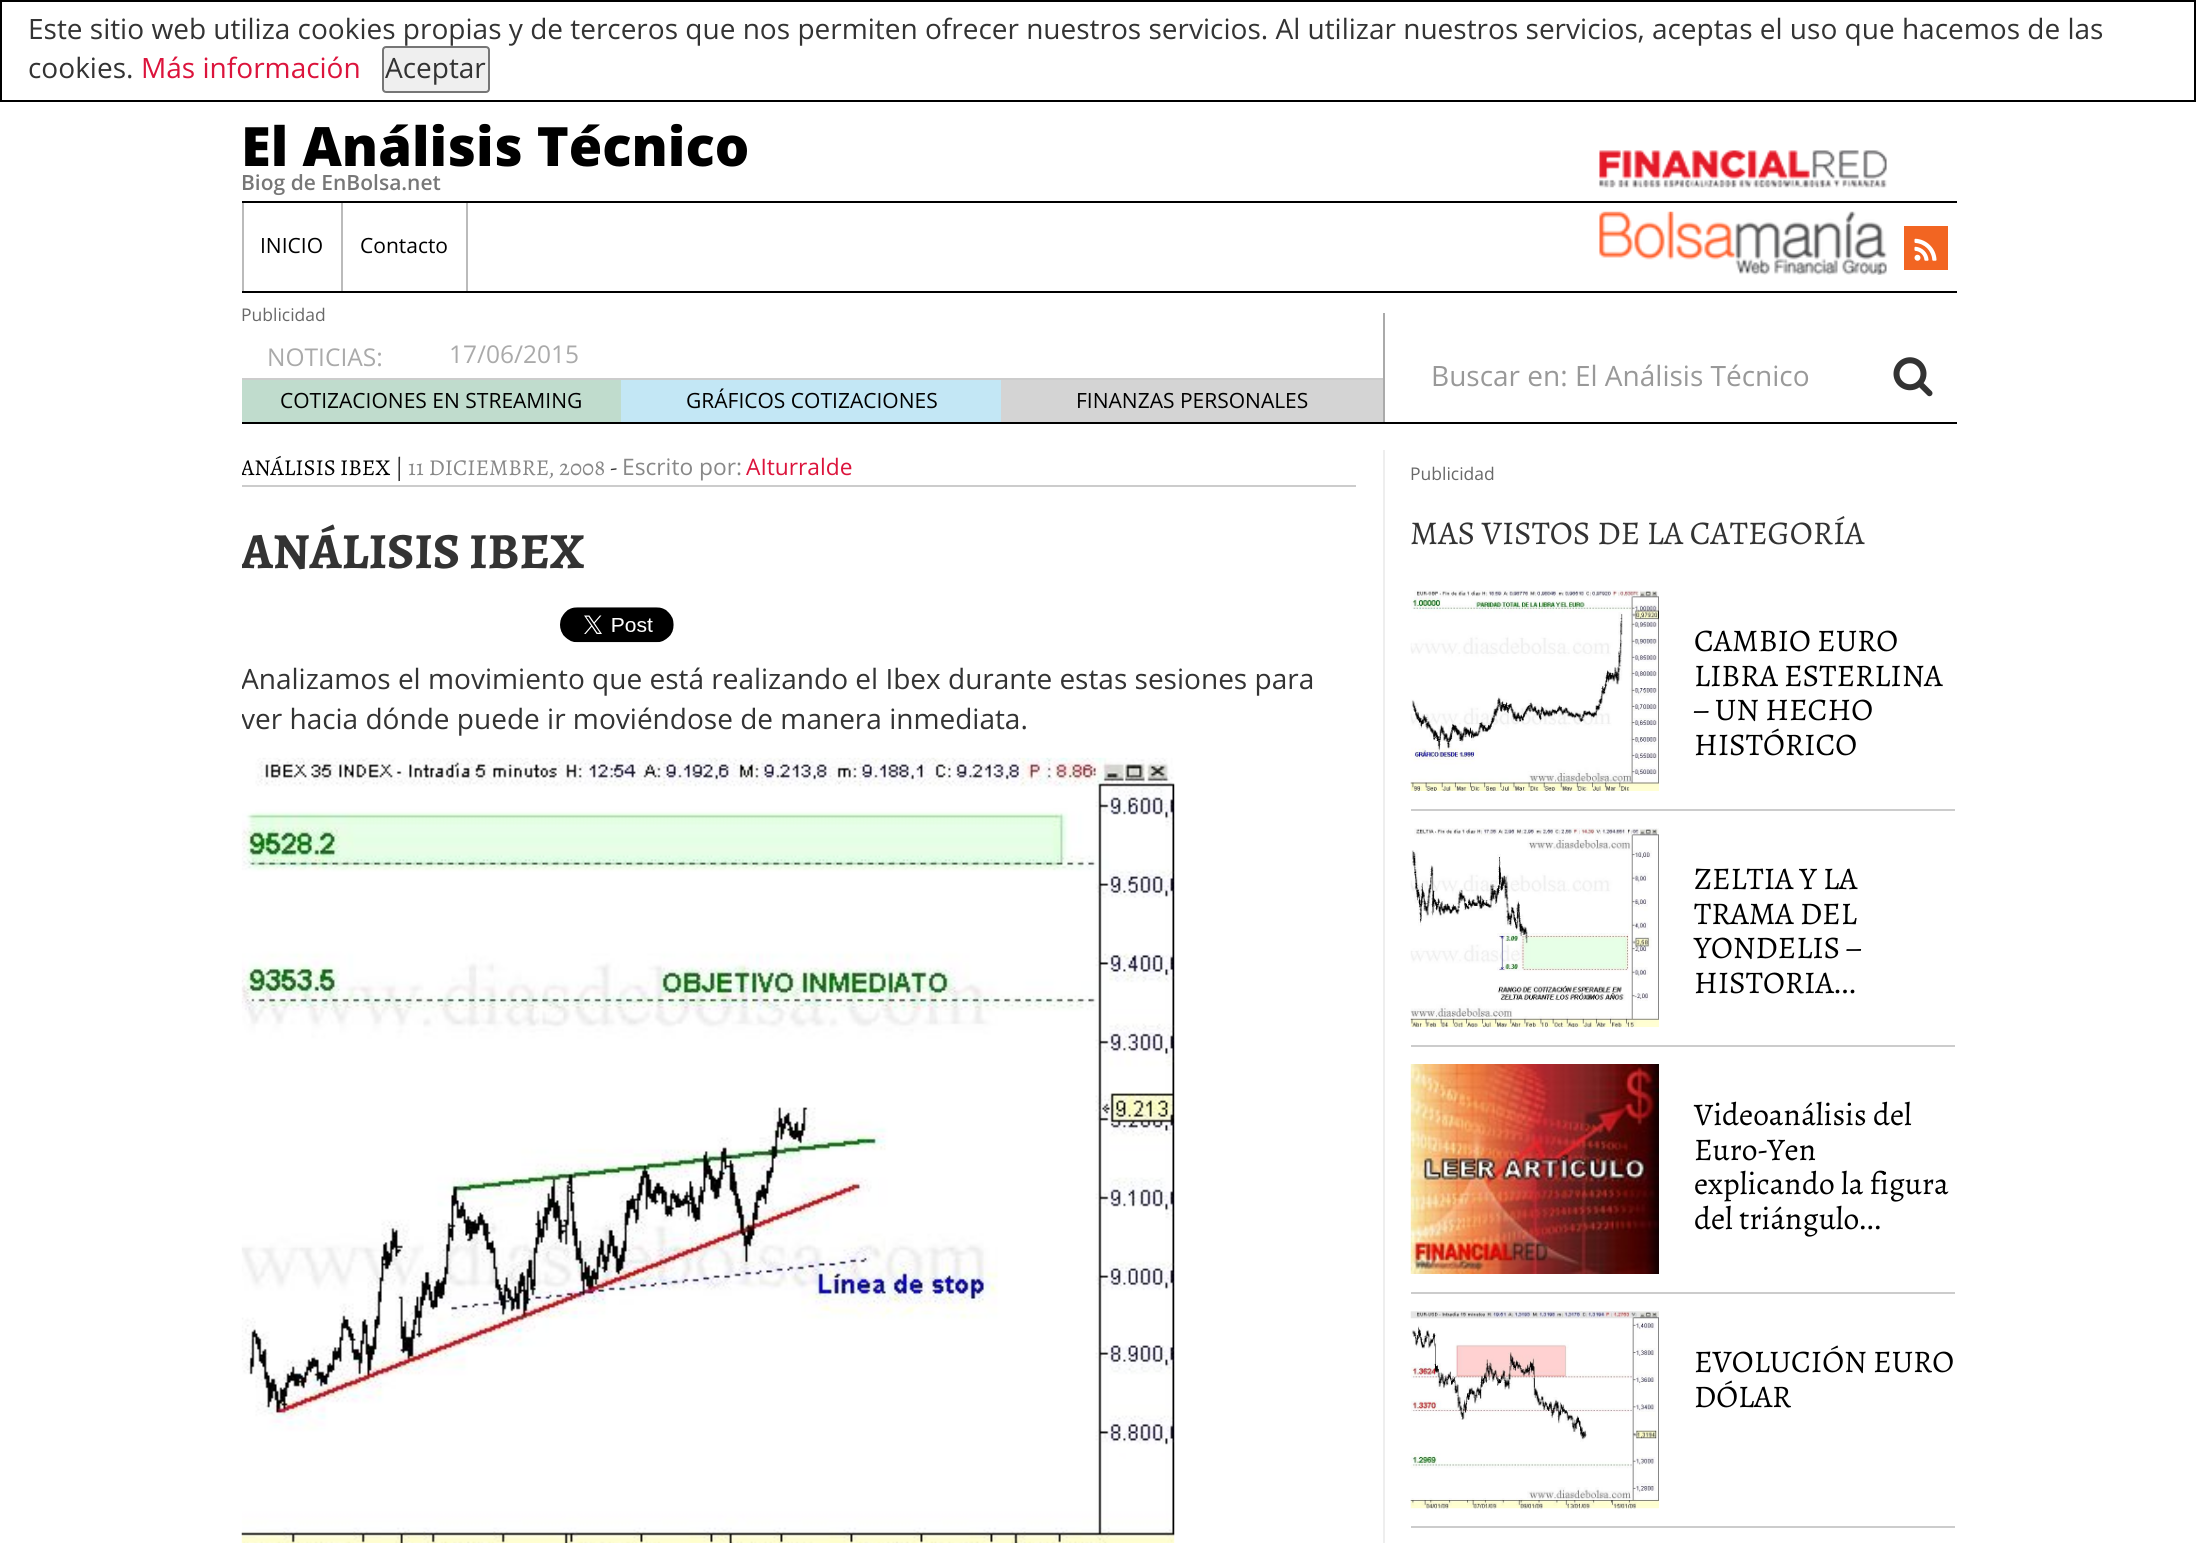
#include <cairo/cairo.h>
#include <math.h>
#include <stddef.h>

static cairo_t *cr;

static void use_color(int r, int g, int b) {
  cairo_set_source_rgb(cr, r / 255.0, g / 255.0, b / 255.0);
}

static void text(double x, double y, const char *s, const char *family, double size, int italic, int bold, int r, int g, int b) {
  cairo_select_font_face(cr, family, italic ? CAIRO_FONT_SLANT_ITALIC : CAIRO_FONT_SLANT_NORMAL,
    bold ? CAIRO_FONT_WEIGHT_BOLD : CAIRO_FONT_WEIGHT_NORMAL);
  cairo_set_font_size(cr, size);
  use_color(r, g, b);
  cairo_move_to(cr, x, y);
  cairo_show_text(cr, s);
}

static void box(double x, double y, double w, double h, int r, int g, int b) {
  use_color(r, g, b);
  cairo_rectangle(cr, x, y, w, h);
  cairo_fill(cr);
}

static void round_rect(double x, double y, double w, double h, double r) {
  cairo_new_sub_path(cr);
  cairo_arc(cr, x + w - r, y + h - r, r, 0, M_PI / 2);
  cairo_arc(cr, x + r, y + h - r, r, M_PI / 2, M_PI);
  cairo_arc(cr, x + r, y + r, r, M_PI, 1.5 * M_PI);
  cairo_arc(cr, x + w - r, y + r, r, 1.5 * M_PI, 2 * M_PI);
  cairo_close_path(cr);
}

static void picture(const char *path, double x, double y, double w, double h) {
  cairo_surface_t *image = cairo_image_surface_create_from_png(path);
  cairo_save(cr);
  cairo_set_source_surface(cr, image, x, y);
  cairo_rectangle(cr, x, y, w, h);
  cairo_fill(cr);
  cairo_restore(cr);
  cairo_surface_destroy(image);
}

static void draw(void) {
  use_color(255, 255, 255);
  cairo_paint(cr);
  cairo_rectangle(cr, 1, 1, 2194, 100);
  use_color(0, 0, 0);
  cairo_stroke(cr);
  use_color(239, 239, 239);
  round_rect(383, 47, 106, 45, 3);
  cairo_fill_preserve(cr);
  use_color(118, 118, 118);
  cairo_stroke(cr);
  box(242, 201, 1715, 2, 0, 0, 0);
  box(242, 291, 1715, 2, 0, 0, 0);
  box(242, 203, 2, 88, 187, 187, 187);
  box(341, 203, 2, 88, 187, 187, 187);
  box(466, 203, 2, 88, 187, 187, 187);
  picture("img_01.png", 1599, 150, 288, 38);
  picture("img_02.png", 1599, 211, 288, 64);
  box(1904, 226, 44, 44, 242, 101, 34);
  picture("img_03.png", 1914, 238, 23, 23);
  box(242, 422, 1715, 2, 0, 0, 0);
  box(1383, 313, 2, 109, 170, 170, 170);
  box(242, 378, 1141, 2, 204, 204, 204);
  box(242, 380, 379, 42, 192, 220, 205);
  box(621, 380, 380, 42, 195, 231, 245);
  box(1001, 380, 382, 42, 212, 212, 212);
  picture("img_04.png", 1893, 357, 40, 40);
  box(1383, 450, 2, 1093, 238, 238, 238);
  box(242, 485, 1114, 2, 204, 204, 204);
  picture("img_05.png", 560, 607, 114, 36);
  picture("img_06.png", 241, 757, 934, 786);
  box(1411, 809, 544, 2, 204, 204, 204);
  picture("img_07.png", 1410, 590, 249, 201);
  box(1411, 1045, 544, 2, 204, 204, 204);
  picture("img_08.png", 1410, 828, 249, 200);
  box(1411, 1292, 544, 2, 204, 204, 204);
  picture("img_09.png", 1410, 1064, 249, 210);
  box(1411, 1526, 544, 2, 204, 204, 204);
  picture("img_10.png", 1410, 1311, 249, 198);
  text(28, 39, "Este sitio web utiliza cookies propias y de terceros que nos permiten ofrecer nuestros servicios. Al utilizar nuestros servicios, aceptas el uso que hacemos de las", "Open Sans", 28, 0, 0, 51, 51, 51);
  text(28, 78, "cookies.", "Open Sans", 28, 0, 0, 51, 51, 51);
  text(141, 78, "Más información", "Open Sans", 28, 0, 0, 220, 20, 60);
  text(385, 78, "Aceptar", "Open Sans", 28, 0, 0, 51, 51, 51);
  text(241, 166, "El Análisis Técnico", "Open Sans ExtraBold", 54.25, 0, 0, 0, 0, 0);
  text(241, 190, "Biog de EnBolsa.net", "Open Sans SemiBold", 21, 0, 0, 119, 119, 119);
  text(260, 253, "INICIO", "Open Sans", 21, 0, 0, 0, 0, 0);
  text(360, 253, "Contacto", "Open Sans", 21, 0, 0, 0, 0, 0);
  text(241, 321, "Publicidad", "Open Sans", 17.5, 0, 0, 105, 105, 105);
  text(267, 366, "NOTICIAS:", "Open Sans", 24.5, 0, 0, 170, 170, 170);
  text(449, 363, "17/06/2015", "Open Sans", 24.5, 0, 0, 170, 170, 170);
  text(280, 408, "COTIZACIONES EN STREAMING", "Open Sans", 21, 0, 0, 0, 0, 0);
  text(686, 408, "GRÁFICOS COTIZACIONES", "Open Sans", 21, 0, 0, 0, 0, 0);
  text(1076, 408, "FINANZAS PERSONALES", "Open Sans", 21, 0, 0, 0, 0, 0);
  text(1431, 386, "Buscar en: El Análisis Técnico", "Open Sans", 28, 0, 0, 153, 153, 153);
  cairo_save(cr);
  cairo_rectangle(cr, 242, 450, 1141, 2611);
  cairo_clip(cr);
  text(241, 475, "ANÁLISIS", "Alegreya", 22.75, 0, 0, 0, 0, 0);
  cairo_restore(cr);
  text(340, 475, "IBEX", "Alegreya", 22.75, 0, 0, 0, 0, 0);
  text(395, 475, "|", "Alegreya", 22.75, 0, 0, 51, 51, 51);
  text(408, 475, "11 DICIEMBRE, 2008", "Alegreya", 22.75, 0, 0, 136, 136, 136);
  text(610, 475, "-", "Alegreya", 22.75, 0, 0, 51, 51, 51);
  text(622, 475, "Escrito por:", "Open Sans", 22.75, 0, 0, 136, 136, 136);
  text(746, 475, "AIturralde", "Open Sans", 22.75, 0, 0, 220, 20, 60);
  cairo_save(cr);
  cairo_rectangle(cr, 242, 450, 1141, 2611);
  cairo_clip(cr);
  text(241, 568, "ANÁLISIS IBEX", "Alegreya", 50.75, 0, 1, 51, 51, 51);
  text(241, 689, "Analizamos el movimiento que está realizando el Ibex durante estas sesiones para", "Open Sans", 28, 0, 0, 51, 51, 51);
  text(241, 729, "ver hacia dónde puede ir moviéndose de manera inmediata.", "Open Sans", 28, 0, 0, 51, 51, 51);
  cairo_restore(cr);
  text(1410, 480, "Publicidad", "Open Sans", 17.5, 0, 0, 105, 105, 105);
  text(1410, 544, "MAS VISTOS DE LA CATEGORÍA", "Alegreya", 33.25, 0, 0, 51, 51, 51);
  text(1694, 651, "CAMBIO EURO", "Alegreya", 31.5, 0, 0, 0, 0, 0);
  text(1694, 686, "LIBRA ESTERLINA", "Alegreya", 31.5, 0, 0, 0, 0, 0);
  text(1694, 720, "– UN HECHO", "Alegreya", 31.5, 0, 0, 0, 0, 0);
  text(1694, 755, "HISTÓRICO", "Alegreya", 31.5, 0, 0, 0, 0, 0);
  text(1694, 889, "ZELTIA Y LA", "Alegreya", 31.5, 0, 0, 0, 0, 0);
  text(1694, 924, "TRAMA DEL", "Alegreya", 31.5, 0, 0, 0, 0, 0);
  text(1694, 958, "YONDELIS –", "Alegreya", 31.5, 0, 0, 0, 0, 0);
  text(1694, 993, "HISTORIA...", "Alegreya", 31.5, 0, 0, 0, 0, 0);
  text(1694, 1125, "Videoanálisis del", "Alegreya", 31.5, 0, 0, 0, 0, 0);
  text(1694, 1160, "Euro-Yen", "Alegreya", 31.5, 0, 0, 0, 0, 0);
  text(1694, 1194, "explicando la figura", "Alegreya", 31.5, 0, 0, 0, 0, 0);
  text(1694, 1229, "del triángulo...", "Alegreya", 31.5, 0, 0, 0, 0, 0);
  text(1694, 1372, "EVOLUCIÓN EURO", "Alegreya", 31.5, 0, 0, 0, 0, 0);
  text(1694, 1407, "DÓLAR", "Alegreya", 31.5, 0, 0, 0, 0, 0);
}

int main(void) {
  cairo_surface_t *surface = cairo_image_surface_create(CAIRO_FORMAT_RGB24, 2196, 1543);
  cr = cairo_create(surface);
  cairo_font_options_t *options = cairo_font_options_create();
  cairo_font_options_set_hint_metrics(options, CAIRO_HINT_METRICS_OFF);
  cairo_font_options_set_hint_style(options, CAIRO_HINT_STYLE_NONE);
  cairo_set_font_options(cr, options);
  cairo_set_miter_limit(cr, 4);
  draw();
  cairo_surface_write_to_png(surface, "out.png");
  cairo_font_options_destroy(options);
  cairo_destroy(cr);
  cairo_surface_destroy(surface);
  return 0;
}
